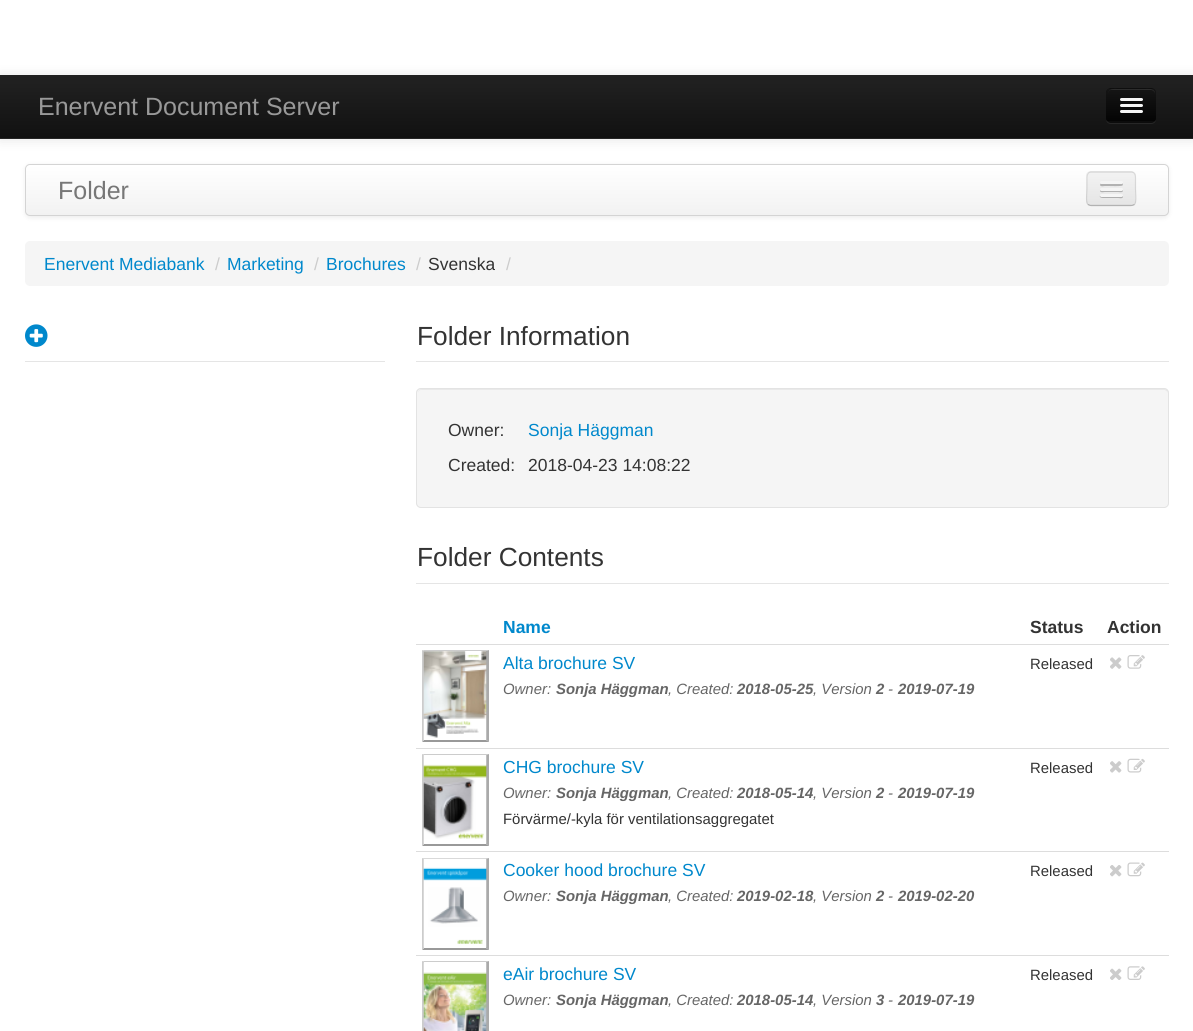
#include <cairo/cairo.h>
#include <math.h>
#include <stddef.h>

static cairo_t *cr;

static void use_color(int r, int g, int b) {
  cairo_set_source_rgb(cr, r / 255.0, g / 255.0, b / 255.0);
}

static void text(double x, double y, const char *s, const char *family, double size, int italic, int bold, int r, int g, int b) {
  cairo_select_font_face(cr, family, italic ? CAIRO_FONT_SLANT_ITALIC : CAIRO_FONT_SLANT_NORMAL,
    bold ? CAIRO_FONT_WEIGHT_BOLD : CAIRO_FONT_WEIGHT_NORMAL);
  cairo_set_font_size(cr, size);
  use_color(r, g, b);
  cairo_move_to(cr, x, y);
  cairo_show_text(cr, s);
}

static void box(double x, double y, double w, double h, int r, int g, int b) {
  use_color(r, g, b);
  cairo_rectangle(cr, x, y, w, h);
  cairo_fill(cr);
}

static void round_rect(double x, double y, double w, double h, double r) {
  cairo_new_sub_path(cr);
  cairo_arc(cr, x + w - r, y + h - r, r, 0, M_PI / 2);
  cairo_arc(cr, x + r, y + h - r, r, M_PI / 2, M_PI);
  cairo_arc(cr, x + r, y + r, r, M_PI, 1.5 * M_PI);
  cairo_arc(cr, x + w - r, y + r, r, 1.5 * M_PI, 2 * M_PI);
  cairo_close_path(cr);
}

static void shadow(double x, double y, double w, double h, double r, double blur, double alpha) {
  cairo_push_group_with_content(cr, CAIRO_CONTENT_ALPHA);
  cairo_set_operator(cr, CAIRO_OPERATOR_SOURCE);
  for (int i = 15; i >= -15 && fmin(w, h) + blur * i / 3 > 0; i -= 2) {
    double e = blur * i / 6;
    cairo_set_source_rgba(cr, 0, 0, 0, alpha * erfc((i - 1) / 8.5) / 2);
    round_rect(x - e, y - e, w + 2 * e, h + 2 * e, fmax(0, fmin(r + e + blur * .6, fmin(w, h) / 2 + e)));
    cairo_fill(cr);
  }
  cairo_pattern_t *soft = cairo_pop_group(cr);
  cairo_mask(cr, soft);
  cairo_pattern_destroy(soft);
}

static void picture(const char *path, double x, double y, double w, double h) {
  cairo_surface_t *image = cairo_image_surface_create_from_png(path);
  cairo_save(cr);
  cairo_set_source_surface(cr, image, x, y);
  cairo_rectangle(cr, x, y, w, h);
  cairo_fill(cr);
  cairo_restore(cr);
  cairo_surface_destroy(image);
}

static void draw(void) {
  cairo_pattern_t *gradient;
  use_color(255, 255, 255);
  cairo_paint(cr);
  use_color(0, 0, 0);
  shadow(0, 76, 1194, 64, 0, 6, 0.1);
  gradient = cairo_pattern_create_linear(597, 75, 597, 138);
  cairo_pattern_add_color_stop_rgba(gradient, 0, 0.133, 0.133, 0.133, 1);
  cairo_pattern_add_color_stop_rgba(gradient, 1, 0.067, 0.067, 0.067, 1);
  cairo_set_source(cr, gradient);
  cairo_pattern_destroy(gradient);
  cairo_rectangle(cr, 0, 75, 1193, 63);
  cairo_fill(cr);
  box(0, 138, 1193, 1, 37, 37, 37);
  use_color(39, 39, 39);
  cairo_new_path(cr);
  cairo_move_to(cr, 1106, 92);
  cairo_line_to(cr, 1106, 119);
  cairo_curve_to(cr, 1106, 122, 1108, 124, 1111, 124);
  cairo_line_to(cr, 1151, 124);
  cairo_curve_to(cr, 1154, 124, 1156, 122, 1156, 119);
  cairo_curve_to(cr, 1155, 121, 1153, 122, 1151, 122);
  cairo_line_to(cr, 1111, 122);
  cairo_curve_to(cr, 1108, 122, 1106, 120, 1106, 118);
  cairo_close_path(cr);
  cairo_fill(cr);
  use_color(14, 14, 14);
  round_rect(1106, 88, 50, 35, 5);
  cairo_fill(cr);
  cairo_save(cr);
  round_rect(1106, 88, 50, 35, 5);
  cairo_clip(cr);
  gradient = cairo_pattern_create_linear(1131, 89, 1131, 121);
  cairo_pattern_add_color_stop_rgba(gradient, 0, 0.082, 0.082, 0.082, 1);
  cairo_pattern_add_color_stop_rgba(gradient, 1, 0.016, 0.016, 0.016, 1);
  cairo_set_source(cr, gradient);
  cairo_pattern_destroy(gradient);
  cairo_rectangle(cr, 1106, 89, 50, 32);
  cairo_fill(cr);
  cairo_restore(cr);
  use_color(44, 44, 44);
  cairo_new_path(cr);
  cairo_move_to(cr, 1111, 90);
  cairo_line_to(cr, 1151, 90);
  cairo_curve_to(cr, 1153, 90, 1155, 92, 1155, 94);
  cairo_curve_to(cr, 1155, 88, 1149, 89, 1144, 89);
  cairo_line_to(cr, 1118, 89);
  cairo_curve_to(cr, 1114, 89, 1108, 88, 1108, 94);
  cairo_curve_to(cr, 1108, 92, 1109, 90, 1111, 90);
  cairo_close_path(cr);
  cairo_fill(cr);
  cairo_new_path(cr);
  cairo_move_to(cr, 1154.5, 120.5);
  cairo_curve_to(cr, 1153.5, 121.5, 1152.5, 122, 1151, 122);
  cairo_line_to(cr, 1111, 122);
  cairo_curve_to(cr, 1110, 122, 1109, 121.5, 1108, 120.5);
  cairo_set_source_rgba(cr, 0, 0, 0, 0.25);
  cairo_set_line_width(cr, 1.2);
  cairo_stroke(cr);
  use_color(11, 11, 11);
  cairo_new_path(cr);
  cairo_move_to(cr, 1120.5, 99.5);
  cairo_line_to(cr, 1120, 101);
  cairo_curve_to(cr, 1120.5, 103, 1124, 102, 1125, 102);
  cairo_line_to(cr, 1138, 102);
  cairo_curve_to(cr, 1139.5, 102, 1143, 103, 1143, 100.5);
  cairo_line_to(cr, 1142.5, 99.5);
  cairo_line_to(cr, 1141.5, 100);
  cairo_curve_to(cr, 1139.5, 100.5, 1121, 100.5, 1120.5, 99.5);
  cairo_close_path(cr);
  cairo_fill(cr);
  use_color(245, 245, 245);
  round_rect(1120, 98, 23, 3, 1.5);
  cairo_fill(cr);
  use_color(9, 9, 9);
  cairo_new_path(cr);
  cairo_move_to(cr, 1120, 105.5);
  cairo_curve_to(cr, 1118.5, 108.5, 1124.5, 108, 1125, 108);
  cairo_line_to(cr, 1138, 108);
  cairo_curve_to(cr, 1139, 108, 1142.5, 109, 1143, 107);
  cairo_curve_to(cr, 1143, 106.5, 1143, 105.5, 1142.5, 105.5);
  cairo_line_to(cr, 1141.5, 106);
  cairo_line_to(cr, 1121, 106);
  cairo_close_path(cr);
  cairo_fill(cr);
  use_color(245, 245, 245);
  round_rect(1120, 104, 23, 3, 1.5);
  cairo_fill(cr);
  use_color(6, 6, 6);
  cairo_new_path(cr);
  cairo_move_to(cr, 1120, 112);
  cairo_curve_to(cr, 1119, 114.5, 1124, 114, 1125, 114);
  cairo_line_to(cr, 1138, 114);
  cairo_curve_to(cr, 1139, 114, 1142.5, 115, 1143, 113);
  cairo_curve_to(cr, 1143, 112.5, 1143, 111.5, 1142.5, 111.5);
  cairo_curve_to(cr, 1142.5, 112, 1142, 112.5, 1141, 112.5);
  cairo_line_to(cr, 1121, 112.5);
  cairo_curve_to(cr, 1121, 112.5, 1120.5, 112, 1120, 112);
  cairo_close_path(cr);
  cairo_fill(cr);
  use_color(245, 245, 245);
  round_rect(1120, 110, 23, 3, 1.5);
  cairo_fill(cr);
  use_color(0, 0, 0);
  shadow(25, 165, 1144, 53, 5, 2.5, 0.07);
  cairo_save(cr);
  round_rect(25, 164, 1144, 52, 5);
  cairo_clip(cr);
  gradient = cairo_pattern_create_linear(597, 165, 597, 215);
  cairo_pattern_add_color_stop_rgba(gradient, 0, 1, 1, 1, 1);
  cairo_pattern_add_color_stop_rgba(gradient, 1, 0.949, 0.949, 0.949, 1);
  cairo_set_source(cr, gradient);
  cairo_pattern_destroy(gradient);
  cairo_rectangle(cr, 25, 165, 1144, 50);
  cairo_fill(cr);
  cairo_restore(cr);
  round_rect(25.5, 164.5, 1143, 51, 4.5);
  use_color(212, 212, 212);
  cairo_set_line_width(cr, 1);
  cairo_stroke(cr);
  use_color(237, 237, 237);
  round_rect(1086, 171, 50, 35, 5);
  cairo_fill(cr);
  cairo_save(cr);
  round_rect(1086, 171, 50, 35, 5);
  cairo_clip(cr);
  gradient = cairo_pattern_create_linear(1111, 173, 1111, 205);
  cairo_pattern_add_color_stop_rgba(gradient, 0, 0.949, 0.949, 0.949, 1);
  cairo_pattern_add_color_stop_rgba(gradient, 1, 0.898, 0.898, 0.898, 1);
  cairo_set_source(cr, gradient);
  cairo_pattern_destroy(gradient);
  cairo_rectangle(cr, 1086, 173, 50, 32);
  cairo_fill(cr);
  cairo_restore(cr);
  cairo_new_path(cr);
  cairo_move_to(cr, 1134.5, 204.5);
  cairo_curve_to(cr, 1133.5, 205, 1132.5, 205.5, 1131, 205.5);
  cairo_line_to(cr, 1091, 205.5);
  cairo_curve_to(cr, 1090, 205.5, 1089, 205, 1088, 204.5);
  cairo_set_source_rgba(cr, 0, 0, 0, 0.25);
  cairo_set_line_width(cr, 1.2);
  cairo_stroke(cr);
  cairo_new_path(cr);
  cairo_move_to(cr, 1088, 204.5);
  cairo_curve_to(cr, 1085.5, 202, 1087, 192, 1087, 189);
  cairo_line_to(cr, 1087, 180.5);
  cairo_curve_to(cr, 1087, 177.5, 1086.5, 173, 1090.5, 172);
  cairo_line_to(cr, 1132, 172);
  cairo_curve_to(cr, 1136, 173, 1135.5, 177.5, 1135.5, 180.5);
  cairo_line_to(cr, 1135.5, 189);
  cairo_curve_to(cr, 1135.5, 192, 1137, 202, 1134.5, 204.5);
  cairo_set_source_rgba(cr, 0, 0, 0, 0.1);
  cairo_stroke(cr);
  use_color(178, 178, 178);
  cairo_new_path(cr);
  cairo_move_to(cr, 1100.5, 183.5);
  cairo_line_to(cr, 1100, 185);
  cairo_curve_to(cr, 1100.5, 187, 1104, 186, 1105, 186);
  cairo_line_to(cr, 1108, 186);
  cairo_curve_to(cr, 1110, 186, 1121.5, 186.5, 1122.5, 185.5);
  cairo_curve_to(cr, 1123, 185, 1123, 184, 1122.5, 183);
  cairo_line_to(cr, 1121.5, 183.5);
  cairo_curve_to(cr, 1119.5, 184, 1101, 184, 1100.5, 183.5);
  cairo_close_path(cr);
  cairo_fill(cr);
  use_color(245, 245, 245);
  round_rect(1100, 181, 23, 3, 1.5);
  cairo_fill(cr);
  use_color(176, 176, 176);
  cairo_new_path(cr);
  cairo_move_to(cr, 1100.5, 189.5);
  cairo_line_to(cr, 1100, 191);
  cairo_curve_to(cr, 1100.5, 193, 1104, 192, 1105, 192);
  cairo_line_to(cr, 1118, 192);
  cairo_curve_to(cr, 1119.5, 192, 1123, 193, 1123, 190.5);
  cairo_line_to(cr, 1122.5, 189.5);
  cairo_line_to(cr, 1121.5, 190);
  cairo_curve_to(cr, 1119.5, 190.5, 1101, 190.5, 1100.5, 189.5);
  cairo_close_path(cr);
  cairo_fill(cr);
  use_color(245, 245, 245);
  round_rect(1100, 188, 23, 3, 1.5);
  cairo_fill(cr);
  use_color(174, 174, 174);
  cairo_new_path(cr);
  cairo_move_to(cr, 1100, 195.5);
  cairo_curve_to(cr, 1098.5, 198.5, 1104.5, 198, 1105, 198);
  cairo_line_to(cr, 1118, 198);
  cairo_curve_to(cr, 1119, 198, 1122.5, 199, 1123, 197);
  cairo_curve_to(cr, 1123, 196.5, 1123, 195.5, 1122.5, 195.5);
  cairo_line_to(cr, 1121.5, 196);
  cairo_line_to(cr, 1101, 196);
  cairo_close_path(cr);
  cairo_fill(cr);
  use_color(245, 245, 245);
  round_rect(1100, 194, 23, 3, 1.5);
  cairo_fill(cr);
  round_rect(25, 241, 1144, 45, 5);
  cairo_fill(cr);
  box(25, 361, 360, 1, 229, 229, 229);
  picture("img_01.png", 25, 324, 23, 23);
  box(416, 361, 753, 1, 229, 229, 229);
  use_color(245, 245, 245);
  round_rect(416, 388, 753, 120, 5);
  cairo_fill(cr);
  use_color(233, 233, 233);
  cairo_new_path(cr);
  cairo_move_to(cr, 421, 390);
  cairo_line_to(cr, 1164, 390);
  cairo_curve_to(cr, 1166, 390, 1168, 392, 1168, 394);
  cairo_curve_to(cr, 1168, 391, 1167, 389, 1164, 389);
  cairo_line_to(cr, 422, 389);
  cairo_curve_to(cr, 419, 389, 418, 391, 418, 394);
  cairo_curve_to(cr, 418, 392, 419, 390, 421, 390);
  cairo_close_path(cr);
  cairo_fill(cr);
  round_rect(416.5, 388.5, 752, 119, 4.5);
  use_color(227, 227, 227);
  cairo_set_line_width(cr, 1);
  cairo_stroke(cr);
  box(416, 583, 753, 1, 229, 229, 229);
  box(416, 644, 753, 1, 221, 221, 221);
  picture("img_02.png", 1110, 657, 12, 12);
  picture("img_03.png", 1127, 655, 18, 14);
  use_color(204, 204, 204);
  cairo_new_path(cr);
  cairo_move_to(cr, 422, 650);
  cairo_line_to(cr, 489, 650);
  cairo_line_to(cr, 486, 651);
  cairo_line_to(cr, 424, 651);
  cairo_close_path(cr);
  cairo_fill(cr);
  use_color(170, 170, 170);
  cairo_new_path(cr);
  cairo_move_to(cr, 489, 650);
  cairo_line_to(cr, 489, 742);
  cairo_line_to(cr, 486, 740);
  cairo_line_to(cr, 486, 651);
  cairo_close_path(cr);
  cairo_fill(cr);
  use_color(153, 153, 153);
  cairo_new_path(cr);
  cairo_move_to(cr, 489, 742);
  cairo_line_to(cr, 422, 742);
  cairo_line_to(cr, 424, 740);
  cairo_line_to(cr, 486, 740);
  cairo_close_path(cr);
  cairo_fill(cr);
  use_color(204, 204, 204);
  cairo_new_path(cr);
  cairo_move_to(cr, 422, 742);
  cairo_line_to(cr, 422, 650);
  cairo_line_to(cr, 424, 651);
  cairo_line_to(cr, 424, 740);
  cairo_close_path(cr);
  cairo_fill(cr);
  picture("img_04.png", 423, 651, 64, 89);
  box(416, 748, 753, 1, 221, 221, 221);
  picture("img_05.png", 1110, 761, 12, 12);
  picture("img_06.png", 1127, 758, 18, 15);
  use_color(204, 204, 204);
  cairo_new_path(cr);
  cairo_move_to(cr, 422, 754);
  cairo_line_to(cr, 489, 754);
  cairo_line_to(cr, 486, 755);
  cairo_line_to(cr, 424, 755);
  cairo_close_path(cr);
  cairo_fill(cr);
  use_color(170, 170, 170);
  cairo_new_path(cr);
  cairo_move_to(cr, 489, 754);
  cairo_line_to(cr, 489, 846);
  cairo_line_to(cr, 486, 844);
  cairo_line_to(cr, 486, 755);
  cairo_close_path(cr);
  cairo_fill(cr);
  use_color(153, 153, 153);
  cairo_new_path(cr);
  cairo_move_to(cr, 489, 846);
  cairo_line_to(cr, 422, 846);
  cairo_line_to(cr, 424, 844);
  cairo_line_to(cr, 486, 844);
  cairo_close_path(cr);
  cairo_fill(cr);
  use_color(204, 204, 204);
  cairo_new_path(cr);
  cairo_move_to(cr, 422, 846);
  cairo_line_to(cr, 422, 754);
  cairo_line_to(cr, 424, 755);
  cairo_line_to(cr, 424, 844);
  cairo_close_path(cr);
  cairo_fill(cr);
  picture("img_07.png", 423, 755, 64, 89);
  box(416, 851, 753, 1, 221, 221, 221);
  picture("img_08.png", 1110, 865, 12, 12);
  picture("img_09.png", 1127, 862, 18, 15);
  use_color(204, 204, 204);
  cairo_new_path(cr);
  cairo_move_to(cr, 422, 858);
  cairo_line_to(cr, 489, 858);
  cairo_line_to(cr, 486, 859);
  cairo_line_to(cr, 424, 859);
  cairo_close_path(cr);
  cairo_fill(cr);
  use_color(170, 170, 170);
  cairo_new_path(cr);
  cairo_move_to(cr, 489, 858);
  cairo_line_to(cr, 489, 950);
  cairo_line_to(cr, 486, 948);
  cairo_line_to(cr, 486, 859);
  cairo_close_path(cr);
  cairo_fill(cr);
  use_color(153, 153, 153);
  cairo_new_path(cr);
  cairo_move_to(cr, 489, 950);
  cairo_line_to(cr, 422, 950);
  cairo_line_to(cr, 424, 948);
  cairo_line_to(cr, 486, 948);
  cairo_close_path(cr);
  cairo_fill(cr);
  use_color(204, 204, 204);
  cairo_new_path(cr);
  cairo_move_to(cr, 422, 950);
  cairo_line_to(cr, 422, 858);
  cairo_line_to(cr, 424, 859);
  cairo_line_to(cr, 424, 948);
  cairo_close_path(cr);
  cairo_fill(cr);
  picture("img_10.png", 423, 858, 64, 90);
  box(416, 955, 753, 1, 221, 221, 221);
  picture("img_11.png", 1110, 968, 12, 12);
  picture("img_12.png", 1127, 966, 18, 14);
  use_color(204, 204, 204);
  cairo_new_path(cr);
  cairo_move_to(cr, 422, 961);
  cairo_line_to(cr, 489, 961);
  cairo_line_to(cr, 486, 962);
  cairo_line_to(cr, 424, 962);
  cairo_close_path(cr);
  cairo_fill(cr);
  cairo_new_path(cr);
  cairo_move_to(cr, 422, 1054);
  cairo_line_to(cr, 422, 961);
  cairo_line_to(cr, 424, 962);
  cairo_line_to(cr, 424, 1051);
  cairo_close_path(cr);
  cairo_fill(cr);
  use_color(170, 170, 170);
  cairo_new_path(cr);
  cairo_move_to(cr, 489, 961);
  cairo_line_to(cr, 489, 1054);
  cairo_line_to(cr, 486, 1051);
  cairo_line_to(cr, 486, 962);
  cairo_close_path(cr);
  cairo_fill(cr);
  picture("img_13.png", 423, 962, 64, 69);
  text(38, 115, "Enervent Document Server", "Liberation Sans", 25, 0, 0, 153, 153, 153);
  text(58, 199, "Folder", "Liberation Sans", 25, 0, 0, 119, 119, 119);
  text(44, 270, "Enervent Mediabank", "Liberation Sans", 17.5, 0, 0, 0, 136, 204);
  text(215, 270, "/", "Liberation Sans", 17.5, 0, 0, 204, 204, 204);
  text(227, 270, "Marketing", "Liberation Sans", 17.5, 0, 0, 0, 136, 204);
  text(314, 270, "/", "Liberation Sans", 17.5, 0, 0, 204, 204, 204);
  text(326, 270, "Brochures", "Liberation Sans", 17.5, 0, 0, 0, 136, 204);
  text(416, 270, "/", "Liberation Sans", 17.5, 0, 0, 204, 204, 204);
  text(428, 270, "Svenska", "Liberation Sans", 17.5, 0, 0, 51, 51, 51);
  text(506, 270, "/", "Liberation Sans", 17.5, 0, 0, 204, 204, 204);
  text(417, 345, "Folder Information", "Liberation Sans", 26.25, 0, 0, 51, 51, 51);
  text(448, 436, "Owner:", "Liberation Sans", 17.5, 0, 0, 51, 51, 51);
  text(528, 436, "Sonja Häggman", "Liberation Sans", 17.5, 0, 0, 0, 136, 204);
  text(448, 471, "Created:", "Liberation Sans", 17.5, 0, 0, 51, 51, 51);
  text(528, 471, "2018-04-23 14:08:22", "Liberation Sans", 17.5, 0, 0, 51, 51, 51);
  text(417, 566, "Folder Contents", "Liberation Sans", 26.25, 0, 0, 51, 51, 51);
  text(503, 633, "Name", "Liberation Sans", 17.5, 0, 1, 0, 136, 204);
  text(1030, 633, "Status", "Liberation Sans", 17.5, 0, 1, 51, 51, 51);
  text(1107, 633, "Action", "Liberation Sans", 17.5, 0, 1, 51, 51, 51);
  text(503, 669, "Alta brochure SV", "Liberation Sans", 17.5, 0, 0, 0, 136, 204);
  text(503, 694, "Owner:", "Liberation Sans", 14.9, 1, 0, 102, 102, 102);
  text(556, 694, "Sonja Häggman", "Liberation Sans", 14.9, 1, 1, 102, 102, 102);
  text(668, 694, ", Created:", "Liberation Sans", 14.9, 1, 0, 102, 102, 102);
  text(737, 694, "2018-05-25", "Liberation Sans", 14.9, 1, 1, 102, 102, 102);
  text(813, 694, ", Version", "Liberation Sans", 14.9, 1, 0, 102, 102, 102);
  text(876, 694, "2", "Liberation Sans", 14.9, 1, 1, 102, 102, 102);
  text(888, 694, "-", "Liberation Sans", 14.9, 1, 0, 102, 102, 102);
  text(898, 694, "2019-07-19", "Liberation Sans", 14.9, 1, 1, 102, 102, 102);
  text(1030, 669, "Released", "Liberation Sans", 14.9, 0, 0, 51, 51, 51);
  text(503, 773, "CHG brochure SV", "Liberation Sans", 17.5, 0, 0, 0, 136, 204);
  text(503, 798, "Owner:", "Liberation Sans", 14.9, 1, 0, 102, 102, 102);
  text(556, 798, "Sonja Häggman", "Liberation Sans", 14.9, 1, 1, 102, 102, 102);
  text(668, 798, ", Created:", "Liberation Sans", 14.9, 1, 0, 102, 102, 102);
  text(737, 798, "2018-05-14", "Liberation Sans", 14.9, 1, 1, 102, 102, 102);
  text(813, 798, ", Version", "Liberation Sans", 14.9, 1, 0, 102, 102, 102);
  text(876, 798, "2", "Liberation Sans", 14.9, 1, 1, 102, 102, 102);
  text(888, 798, "-", "Liberation Sans", 14.9, 1, 0, 102, 102, 102);
  text(898, 798, "2019-07-19", "Liberation Sans", 14.9, 1, 1, 102, 102, 102);
  text(503, 824, "Förvärme/-kyla för ventilationsaggregatet", "Liberation Sans", 14.9, 0, 0, 51, 51, 51);
  text(1030, 773, "Released", "Liberation Sans", 14.9, 0, 0, 51, 51, 51);
  text(503, 876, "Cooker hood brochure SV", "Liberation Sans", 17.5, 0, 0, 0, 136, 204);
  text(503, 901, "Owner:", "Liberation Sans", 14.9, 1, 0, 102, 102, 102);
  text(556, 901, "Sonja Häggman", "Liberation Sans", 14.9, 1, 1, 102, 102, 102);
  text(668, 901, ", Created:", "Liberation Sans", 14.9, 1, 0, 102, 102, 102);
  text(737, 901, "2019-02-18", "Liberation Sans", 14.9, 1, 1, 102, 102, 102);
  text(813, 901, ", Version", "Liberation Sans", 14.9, 1, 0, 102, 102, 102);
  text(876, 901, "2", "Liberation Sans", 14.9, 1, 1, 102, 102, 102);
  text(888, 901, "-", "Liberation Sans", 14.9, 1, 0, 102, 102, 102);
  text(898, 901, "2019-02-20", "Liberation Sans", 14.9, 1, 1, 102, 102, 102);
  text(1030, 876, "Released", "Liberation Sans", 14.9, 0, 0, 51, 51, 51);
  text(503, 980, "eAir brochure SV", "Liberation Sans", 17.5, 0, 0, 0, 136, 204);
  text(503, 1005, "Owner:", "Liberation Sans", 14.9, 1, 0, 102, 102, 102);
  text(556, 1005, "Sonja Häggman", "Liberation Sans", 14.9, 1, 1, 102, 102, 102);
  text(668, 1005, ", Created:", "Liberation Sans", 14.9, 1, 0, 102, 102, 102);
  text(737, 1005, "2018-05-14", "Liberation Sans", 14.9, 1, 1, 102, 102, 102);
  text(813, 1005, ", Version", "Liberation Sans", 14.9, 1, 0, 102, 102, 102);
  text(876, 1005, "3", "Liberation Sans", 14.9, 1, 1, 102, 102, 102);
  text(888, 1005, "-", "Liberation Sans", 14.9, 1, 0, 102, 102, 102);
  text(898, 1005, "2019-07-19", "Liberation Sans", 14.9, 1, 1, 102, 102, 102);
  text(1030, 980, "Released", "Liberation Sans", 14.9, 0, 0, 51, 51, 51);
}

int main(void) {
  cairo_surface_t *surface = cairo_image_surface_create(CAIRO_FORMAT_RGB24, 1193, 1031);
  cr = cairo_create(surface);
  cairo_font_options_t *options = cairo_font_options_create();
  cairo_font_options_set_hint_metrics(options, CAIRO_HINT_METRICS_OFF);
  cairo_font_options_set_hint_style(options, CAIRO_HINT_STYLE_NONE);
  cairo_set_font_options(cr, options);
  cairo_set_miter_limit(cr, 4);
  draw();
  cairo_surface_write_to_png(surface, "out.png");
  cairo_font_options_destroy(options);
  cairo_destroy(cr);
  cairo_surface_destroy(surface);
  return 0;
}
